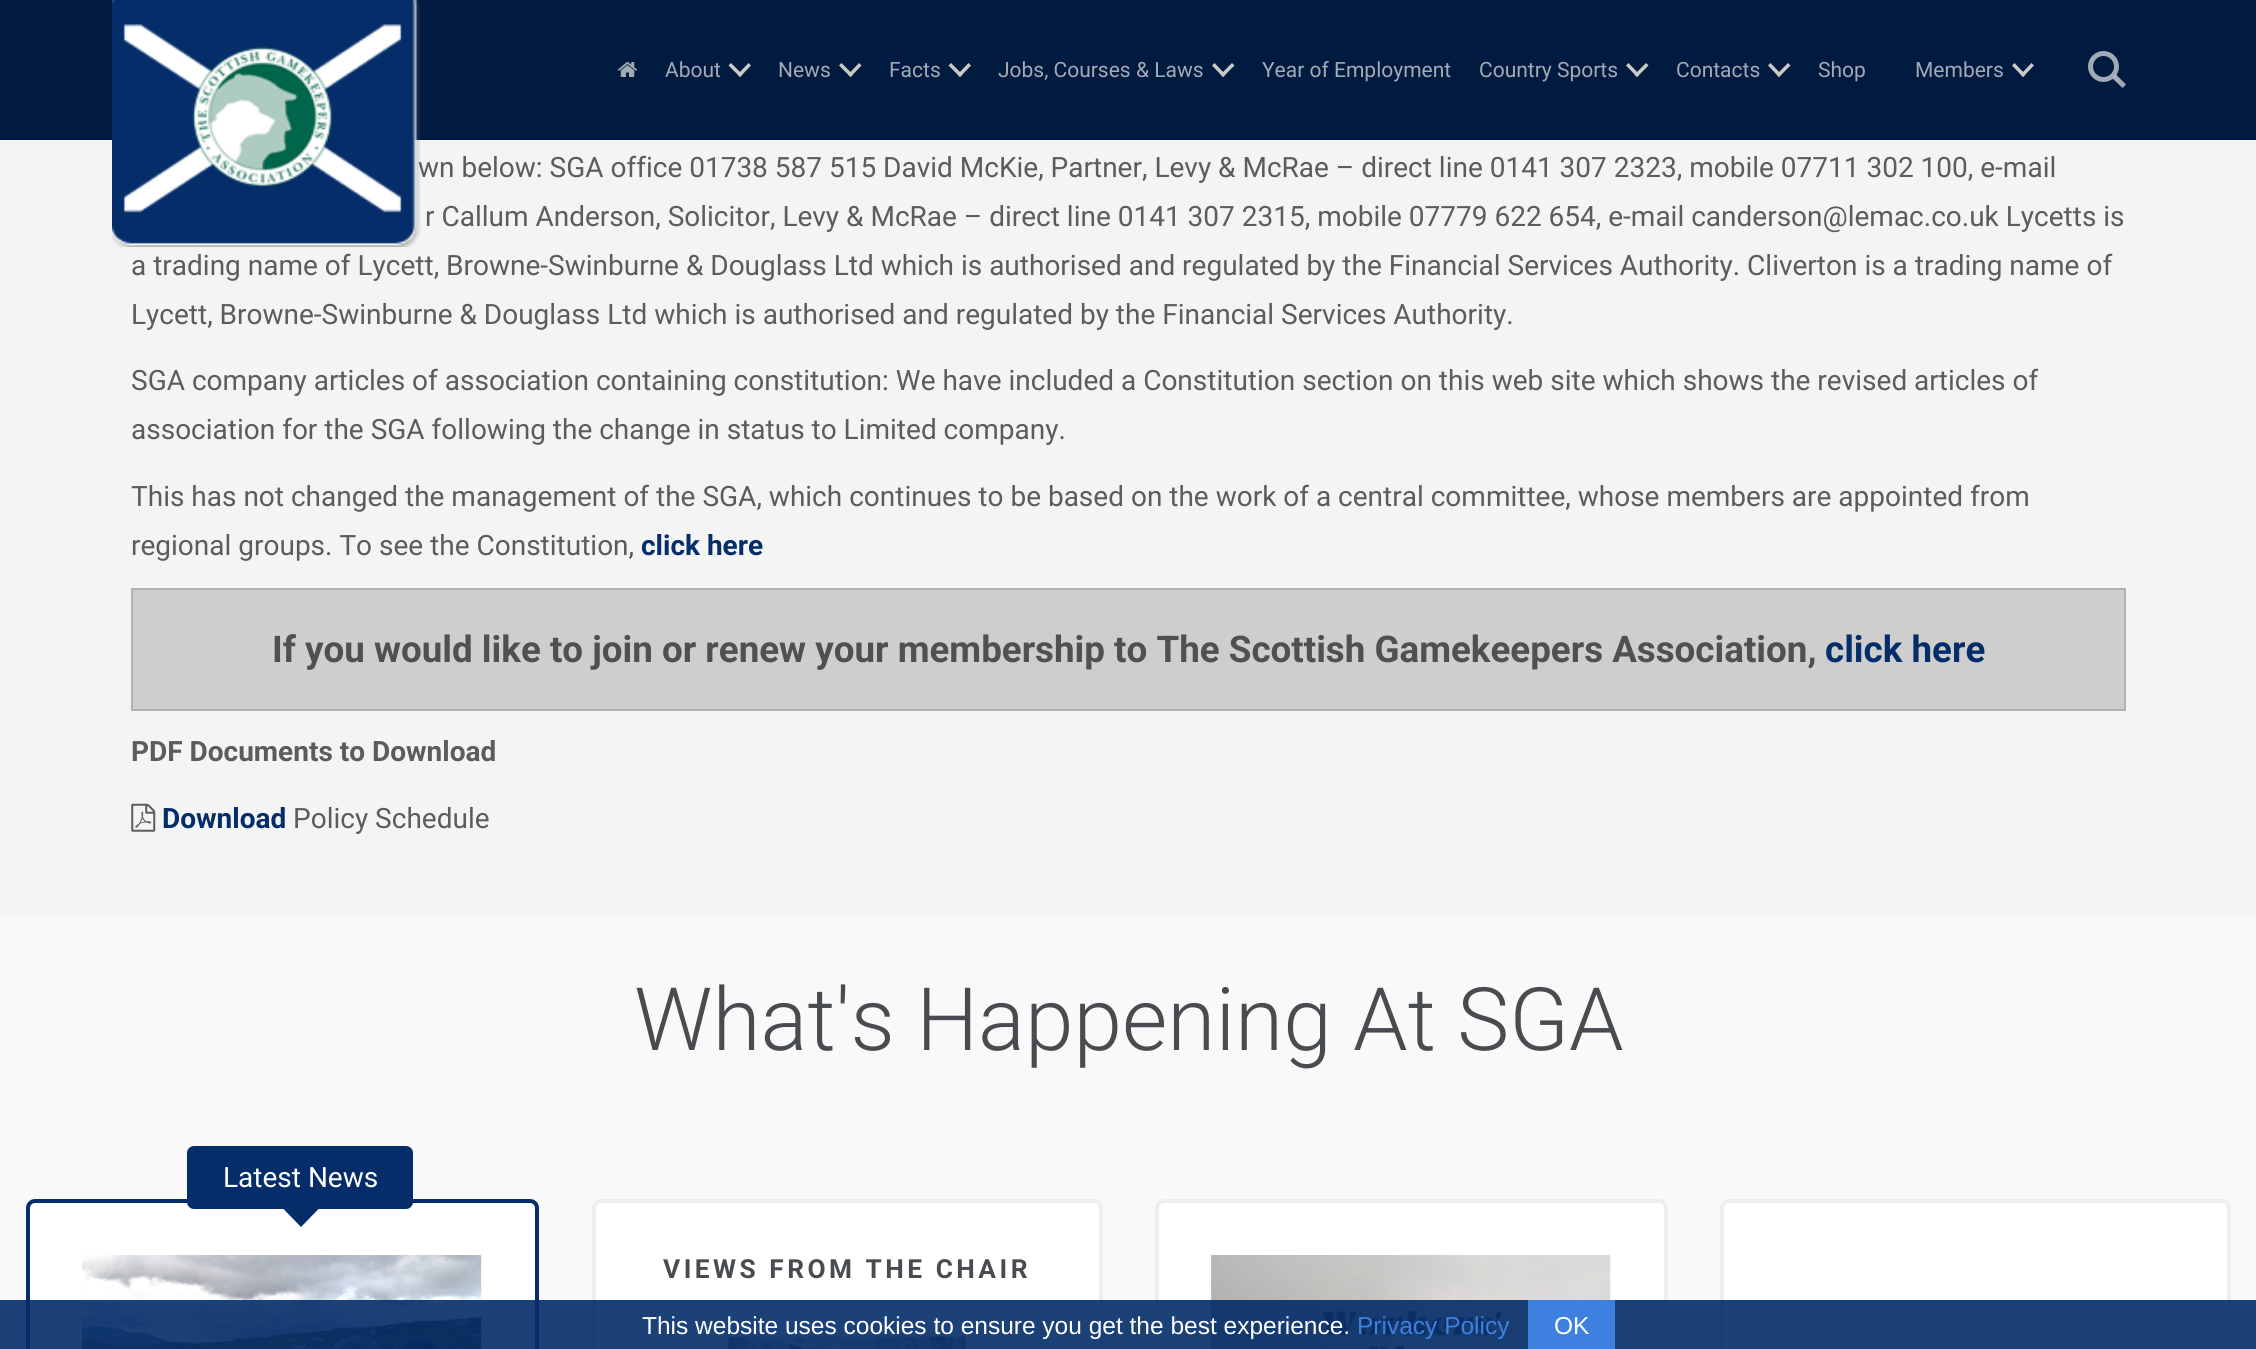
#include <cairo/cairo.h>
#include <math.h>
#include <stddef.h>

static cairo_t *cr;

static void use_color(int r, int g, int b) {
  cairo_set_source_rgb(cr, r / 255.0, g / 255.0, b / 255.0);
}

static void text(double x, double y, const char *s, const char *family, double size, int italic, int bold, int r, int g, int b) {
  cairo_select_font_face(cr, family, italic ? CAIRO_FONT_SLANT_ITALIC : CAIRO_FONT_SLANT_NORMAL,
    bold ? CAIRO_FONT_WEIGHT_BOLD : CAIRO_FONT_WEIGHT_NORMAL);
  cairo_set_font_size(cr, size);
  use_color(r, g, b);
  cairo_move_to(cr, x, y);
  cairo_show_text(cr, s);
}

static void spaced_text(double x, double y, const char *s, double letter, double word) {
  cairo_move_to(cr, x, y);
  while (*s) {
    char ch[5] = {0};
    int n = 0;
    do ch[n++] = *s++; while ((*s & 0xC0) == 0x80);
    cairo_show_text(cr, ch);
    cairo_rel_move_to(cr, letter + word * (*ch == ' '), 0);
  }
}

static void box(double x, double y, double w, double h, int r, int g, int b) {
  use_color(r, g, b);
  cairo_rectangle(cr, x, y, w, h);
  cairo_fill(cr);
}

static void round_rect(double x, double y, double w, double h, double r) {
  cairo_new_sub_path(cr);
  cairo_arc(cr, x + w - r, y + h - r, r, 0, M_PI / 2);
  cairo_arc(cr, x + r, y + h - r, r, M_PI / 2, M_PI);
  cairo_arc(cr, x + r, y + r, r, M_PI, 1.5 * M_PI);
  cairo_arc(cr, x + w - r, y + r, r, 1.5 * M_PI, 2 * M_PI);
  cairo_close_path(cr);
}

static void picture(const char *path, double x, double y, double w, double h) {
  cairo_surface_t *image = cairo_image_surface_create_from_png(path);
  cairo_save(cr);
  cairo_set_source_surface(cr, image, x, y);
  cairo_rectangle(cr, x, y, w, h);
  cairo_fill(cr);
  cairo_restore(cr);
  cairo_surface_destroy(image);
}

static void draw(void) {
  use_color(244, 244, 244);
  cairo_paint(cr);
  box(0, 0, 2256, 140, 0, 26, 64);
  picture("img_02.png", 618, 62, 19, 15);
  use_color(201, 203, 196);
  cairo_new_path(cr);
  cairo_move_to(cr, 731, 63);
  cairo_line_to(cr, 742.5, 74.5);
  cairo_line_to(cr, 740, 77);
  cairo_line_to(cr, 728.5, 65.5);
  cairo_close_path(cr);
  cairo_fill(cr);
  cairo_new_path(cr);
  cairo_move_to(cr, 737.5, 74.5);
  cairo_line_to(cr, 748.5, 63);
  cairo_line_to(cr, 751, 65.5);
  cairo_line_to(cr, 740, 77);
  cairo_close_path(cr);
  cairo_fill(cr);
  cairo_new_path(cr);
  cairo_move_to(cr, 841.5, 63);
  cairo_line_to(cr, 853, 74.5);
  cairo_line_to(cr, 850.5, 77);
  cairo_line_to(cr, 839, 65.5);
  cairo_close_path(cr);
  cairo_fill(cr);
  cairo_new_path(cr);
  cairo_move_to(cr, 848, 74.5);
  cairo_line_to(cr, 859, 63);
  cairo_line_to(cr, 861.5, 65.5);
  cairo_line_to(cr, 850.5, 77);
  cairo_close_path(cr);
  cairo_fill(cr);
  cairo_new_path(cr);
  cairo_move_to(cr, 951, 63);
  cairo_line_to(cr, 962.5, 74.5);
  cairo_line_to(cr, 960, 77);
  cairo_line_to(cr, 948.5, 65.5);
  cairo_close_path(cr);
  cairo_fill(cr);
  cairo_new_path(cr);
  cairo_move_to(cr, 957.5, 74.5);
  cairo_line_to(cr, 968.5, 63);
  cairo_line_to(cr, 971, 65.5);
  cairo_line_to(cr, 960, 77);
  cairo_close_path(cr);
  cairo_fill(cr);
  cairo_new_path(cr);
  cairo_move_to(cr, 1214.5, 63);
  cairo_line_to(cr, 1225.5, 74.5);
  cairo_line_to(cr, 1223, 77);
  cairo_line_to(cr, 1212, 65.5);
  cairo_close_path(cr);
  cairo_fill(cr);
  cairo_new_path(cr);
  cairo_move_to(cr, 1220.5, 74.5);
  cairo_line_to(cr, 1232, 63);
  cairo_line_to(cr, 1234.5, 65.5);
  cairo_line_to(cr, 1223, 77);
  cairo_close_path(cr);
  cairo_fill(cr);
  cairo_new_path(cr);
  cairo_move_to(cr, 1628.5, 63);
  cairo_line_to(cr, 1639.5, 74.5);
  cairo_line_to(cr, 1637, 77);
  cairo_line_to(cr, 1626, 65.5);
  cairo_close_path(cr);
  cairo_fill(cr);
  cairo_new_path(cr);
  cairo_move_to(cr, 1634.5, 74.5);
  cairo_line_to(cr, 1646, 63);
  cairo_line_to(cr, 1648.5, 65.5);
  cairo_line_to(cr, 1637, 77);
  cairo_close_path(cr);
  cairo_fill(cr);
  cairo_new_path(cr);
  cairo_move_to(cr, 1770.5, 63);
  cairo_line_to(cr, 1781.5, 74.5);
  cairo_line_to(cr, 1779, 77);
  cairo_line_to(cr, 1768, 65.5);
  cairo_close_path(cr);
  cairo_fill(cr);
  cairo_new_path(cr);
  cairo_move_to(cr, 1776.5, 74.5);
  cairo_line_to(cr, 1788, 63);
  cairo_line_to(cr, 1790.5, 65.5);
  cairo_line_to(cr, 1779, 77);
  cairo_close_path(cr);
  cairo_fill(cr);
  cairo_new_path(cr);
  cairo_move_to(cr, 2014.5, 63);
  cairo_line_to(cr, 2025.5, 74.5);
  cairo_line_to(cr, 2023, 77);
  cairo_line_to(cr, 2012, 65.5);
  cairo_close_path(cr);
  cairo_fill(cr);
  cairo_new_path(cr);
  cairo_move_to(cr, 2020.5, 74.5);
  cairo_line_to(cr, 2031.5, 63);
  cairo_line_to(cr, 2034, 65.5);
  cairo_line_to(cr, 2023, 77);
  cairo_close_path(cr);
  cairo_fill(cr);
  cairo_arc(cr, 2103.5, 66.5, 13, 0, 2 * M_PI);
  use_color(162, 170, 181);
  cairo_set_line_width(cr, 5);
  cairo_stroke(cr);
  cairo_set_source_rgba(cr, 0.906, 0.906, 0.906, 0.7);
  cairo_new_path(cr);
  cairo_move_to(cr, 2116, 74.5);
  cairo_line_to(cr, 2126, 84.5);
  cairo_line_to(cr, 2122.5, 88);
  cairo_line_to(cr, 2112.5, 78.5);
  cairo_close_path(cr);
  cairo_fill(cr);
  use_color(206, 206, 206);
  cairo_rectangle(cr, 132, 589, 1993, 121);
  cairo_fill_preserve(cr);
  use_color(177, 177, 177);
  cairo_set_line_width(cr, 2);
  cairo_stroke(cr);
  picture("img_03.png", 131, 803, 25, 29);
  box(0, 917, 2256, 432, 249, 249, 249);
  use_color(255, 255, 255);
  round_rect(28, 1201, 509, 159, 7);
  cairo_fill_preserve(cr);
  use_color(4, 45, 105);
  cairo_set_line_width(cr, 4);
  cairo_stroke(cr);
  round_rect(187, 1146, 226, 63, 7);
  cairo_fill(cr);
  cairo_new_path(cr);
  cairo_move_to(cr, 283.5, 1209);
  cairo_line_to(cr, 318.5, 1209);
  cairo_line_to(cr, 301, 1227);
  cairo_close_path(cr);
  cairo_fill(cr);
  picture("img_04.png", 82, 1255, 400, 94);
  use_color(255, 255, 255);
  round_rect(594, 1201, 507, 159, 7);
  cairo_fill_preserve(cr);
  use_color(236, 238, 240);
  cairo_stroke(cr);
  picture("img_05.png", 727, 1336, 239, 13);
  use_color(255, 255, 255);
  round_rect(1157, 1201, 509, 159, 7);
  cairo_fill_preserve(cr);
  use_color(236, 238, 240);
  cairo_stroke(cr);
  picture("img_06.png", 1211, 1255, 400, 94);
  use_color(255, 255, 255);
  round_rect(1722, 1201, 507, 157, 7);
  cairo_fill_preserve(cr);
  use_color(236, 238, 240);
  cairo_stroke(cr);
  cairo_set_source_rgba(cr, 0.016, 0.176, 0.412, 0.9);
  cairo_rectangle(cr, 0, 1300, 2256, 49);
  cairo_fill(cr);
  box(1528, 1300, 87, 49, 62, 128, 223);
  text(665, 77, "About", "Roboto", 21, 0, 0, 162, 170, 181);
  text(778, 77, "News", "Roboto", 21, 0, 0, 162, 170, 181);
  text(889, 77, "Facts", "Roboto", 21, 0, 0, 162, 170, 181);
  text(998, 77, "Jobs, Courses & Laws", "Roboto", 21, 0, 0, 162, 170, 181);
  text(1262, 77, "Year of Employment", "Roboto", 21, 0, 0, 162, 170, 181);
  text(1479, 77, "Country Sports", "Roboto", 21, 0, 0, 162, 170, 181);
  text(1676, 77, "Contacts", "Roboto", 21, 0, 0, 162, 170, 181);
  text(1818, 77, "Shop", "Roboto", 21, 0, 0, 162, 170, 181);
  text(1915, 77, "Members", "Roboto", 21, 0, 0, 162, 170, 181);
  text(418, 177, "wn below: SGA office 01738 587 515 David McKie, Partner, Levy & McRae – direct line 0141 307 2323, mobile 07711 302 100, e-mail", "Roboto", 28, 0, 0, 92, 92, 92);
  picture("img_01.png", 112, 0, 309, 247);
  text(425, 226, "r Callum Anderson, Solicitor, Levy & McRae – direct line 0141 307 2315, mobile 07779 622 654, e-mail canderson@lemac.co.uk Lycetts is", "Roboto", 28, 0, 0, 92, 92, 92);
  text(131, 275, "a trading name of Lycett, Browne-Swinburne & Douglass Ltd which is authorised and regulated by the Financial Services Authority. Cliverton is a trading name of", "Roboto", 28, 0, 0, 92, 92, 92);
  text(131, 324, "Lycett, Browne-Swinburne & Douglass Ltd which is authorised and regulated by the Financial Services Authority.", "Roboto", 28, 0, 0, 92, 92, 92);
  text(131, 390, "SGA company articles of association containing constitution: We have included a Constitution section on this web site which shows the revised articles of", "Roboto", 28, 0, 0, 92, 92, 92);
  text(131, 439, "association for the SGA following the change in status to Limited company.", "Roboto", 28, 0, 0, 92, 92, 92);
  text(131, 506, "This has not changed the management of the SGA, which continues to be based on the work of a central committee, whose members are appointed from", "Roboto", 28, 0, 0, 92, 92, 92);
  text(131, 555, "regional groups. To see the Constitution,", "Roboto", 28, 0, 0, 92, 92, 92);
  text(641, 555, "click here", "Roboto", 28, 0, 1, 4, 45, 105);
  text(272, 662, "If you would like to join or renew your membership to The Scottish Gamekeepers Association,", "Roboto", 36.75, 0, 1, 80, 80, 80);
  text(1825, 662, "click here", "Roboto", 36.75, 0, 1, 4, 45, 105);
  text(131, 761, "PDF Documents to Download", "Roboto", 28, 0, 1, 92, 92, 92);
  text(162, 828, "Download", "Roboto", 28, 0, 1, 4, 45, 105);
  text(293, 828, "Policy Schedule", "Roboto", 28, 0, 0, 92, 92, 92);
  text(634, 1050, "What's Happening At SGA", "Roboto Light", 87.5, 0, 0, 72, 76, 80);
  text(223, 1187, "Latest News", "Roboto", 28, 0, 0, 255, 255, 255);
  cairo_select_font_face(cr, "Roboto", CAIRO_FONT_SLANT_NORMAL, CAIRO_FONT_WEIGHT_BOLD);
  cairo_set_font_size(cr, 26.25);
  use_color(72, 76, 80);
  spaced_text(663, 1278, "VIEWS FROM THE CHAIR", 3.5, 0);
  text(642, 1334, "This website uses cookies to ensure you get the best experience.", "Liberation Sans", 24.5, 0, 0, 255, 255, 255);
  text(1357, 1334, "Privacy Policy", "Liberation Sans", 24.5, 0, 0, 62, 128, 223);
  text(1554, 1334, "OK", "Liberation Sans", 24.5, 0, 0, 255, 255, 255);
}

int main(void) {
  cairo_surface_t *surface = cairo_image_surface_create(CAIRO_FORMAT_RGB24, 2256, 1349);
  cr = cairo_create(surface);
  cairo_font_options_t *options = cairo_font_options_create();
  cairo_font_options_set_hint_metrics(options, CAIRO_HINT_METRICS_OFF);
  cairo_font_options_set_hint_style(options, CAIRO_HINT_STYLE_NONE);
  cairo_set_font_options(cr, options);
  cairo_set_miter_limit(cr, 4);
  draw();
  cairo_surface_write_to_png(surface, "out.png");
  cairo_font_options_destroy(options);
  cairo_destroy(cr);
  cairo_surface_destroy(surface);
  return 0;
}
